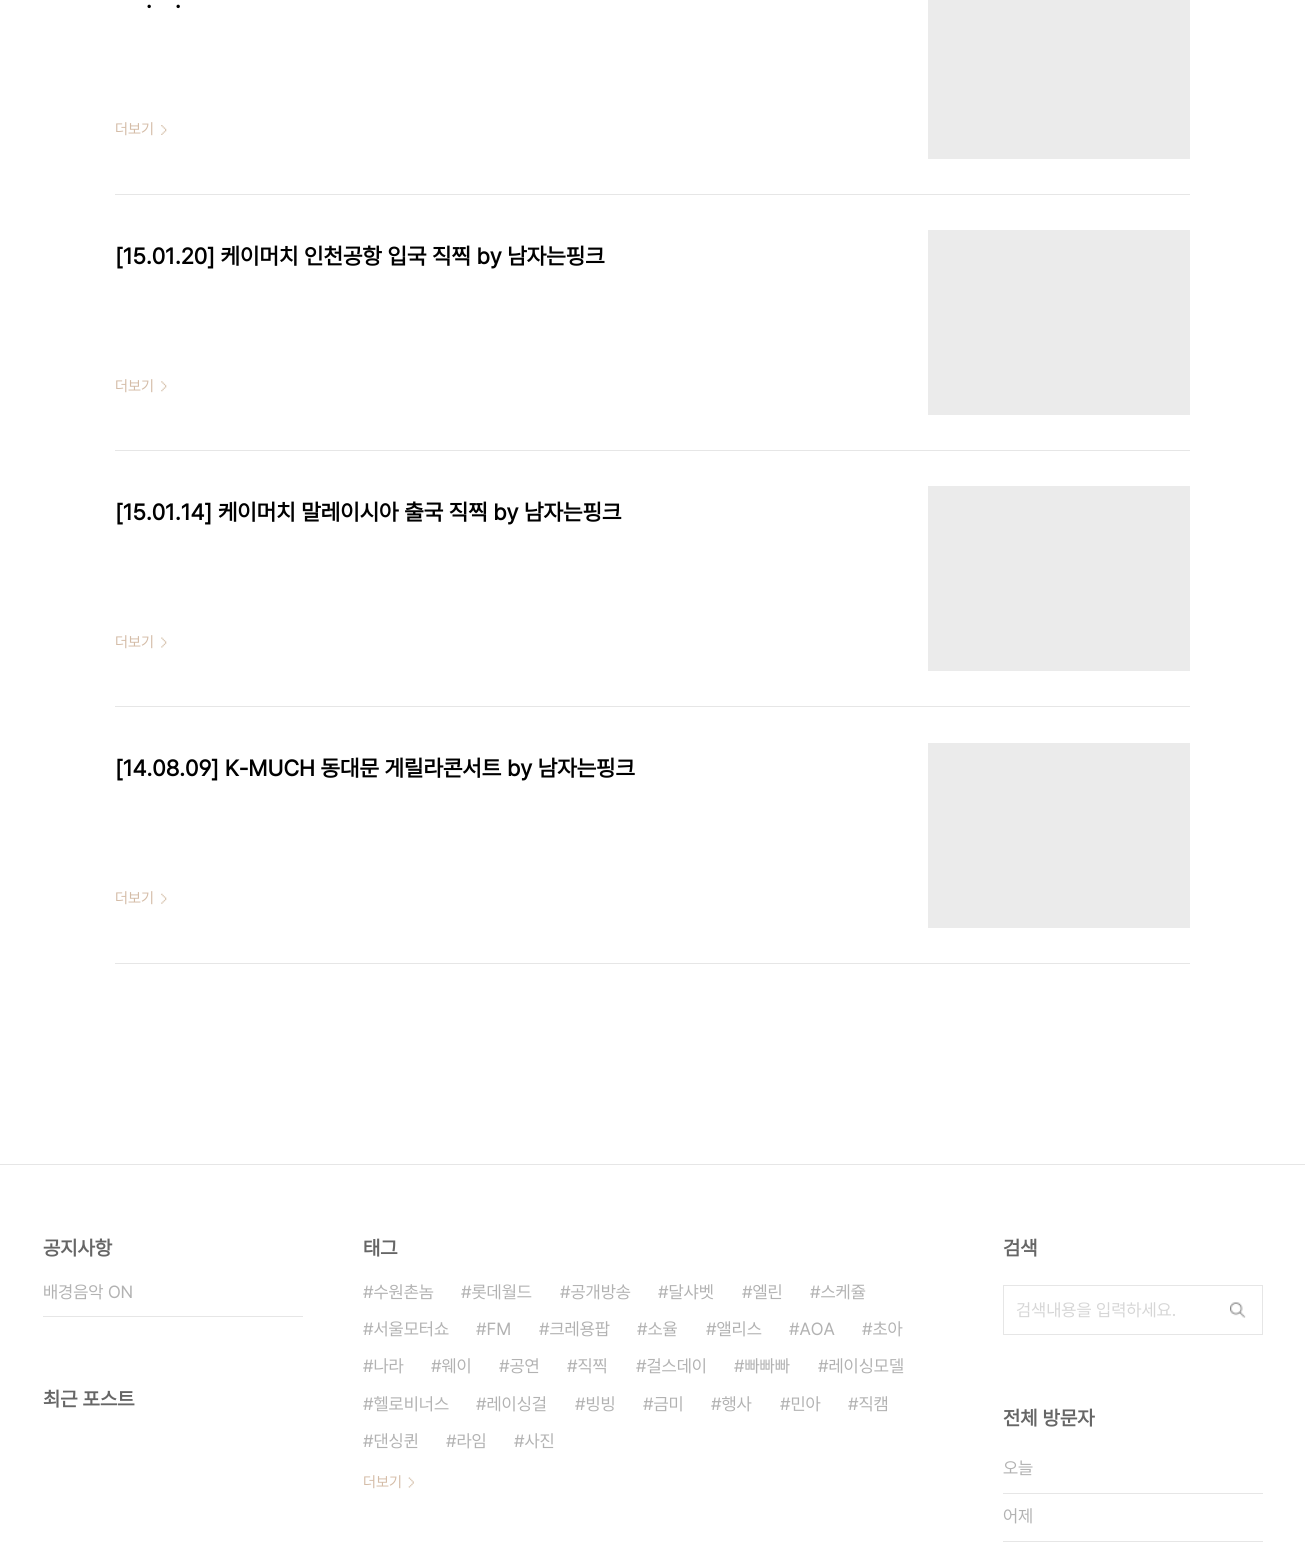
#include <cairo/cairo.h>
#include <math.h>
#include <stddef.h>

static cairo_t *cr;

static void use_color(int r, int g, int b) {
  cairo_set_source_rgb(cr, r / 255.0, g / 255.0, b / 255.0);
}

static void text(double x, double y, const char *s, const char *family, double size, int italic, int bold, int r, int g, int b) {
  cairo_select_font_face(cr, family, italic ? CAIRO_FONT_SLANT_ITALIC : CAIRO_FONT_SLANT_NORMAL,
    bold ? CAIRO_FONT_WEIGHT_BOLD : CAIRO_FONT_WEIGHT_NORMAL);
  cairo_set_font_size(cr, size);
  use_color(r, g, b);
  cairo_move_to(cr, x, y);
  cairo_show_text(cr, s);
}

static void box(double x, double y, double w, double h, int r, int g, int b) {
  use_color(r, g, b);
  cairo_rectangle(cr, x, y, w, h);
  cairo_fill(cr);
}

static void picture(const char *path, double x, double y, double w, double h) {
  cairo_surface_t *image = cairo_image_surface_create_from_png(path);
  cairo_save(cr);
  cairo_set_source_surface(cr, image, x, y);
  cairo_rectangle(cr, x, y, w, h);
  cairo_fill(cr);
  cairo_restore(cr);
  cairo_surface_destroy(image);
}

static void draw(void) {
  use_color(255, 255, 255);
  cairo_paint(cr);
  box(115, 194, 1075, 1, 230, 230, 230);
  box(928, 0, 262, 159, 235, 235, 235);
  picture("img_01.png", 161, 125, 6, 10);
  box(115, 450, 1075, 1, 230, 230, 230);
  box(928, 230, 262, 185, 235, 235, 235);
  picture("img_02.png", 161, 381, 6, 11);
  box(115, 706, 1075, 1, 230, 230, 230);
  box(928, 486, 262, 185, 235, 235, 235);
  picture("img_03.png", 161, 637, 6, 11);
  box(115, 963, 1075, 1, 230, 230, 230);
  box(928, 743, 262, 185, 235, 235, 235);
  picture("img_04.png", 161, 893, 6, 11);
  box(0, 1164, 1305, 1, 230, 230, 230);
  box(43, 1316, 260, 1, 230, 230, 230);
  picture("img_05.png", 408, 1477, 6, 11);
  cairo_rectangle(cr, 1003.5, 1285.5, 259, 49);
  cairo_set_line_width(cr, 1);
  cairo_stroke(cr);
  picture("img_06.png", 1230, 1302, 16, 16);
  box(1003, 1493, 260, 1, 230, 230, 230);
  box(1003, 1541, 260, 1, 230, 230, 230);
  text(146, 8, ".", "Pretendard", 22.5, 0, 1, 0, 0, 0);
  text(175, 8, ".", "Pretendard", 22.5, 0, 1, 0, 0, 0);
  text(115, 134, "더보기", "Pretendard", 15, 0, 0, 212, 188, 167);
  text(115, 264, "[15.01.20] 케이머치 인천공항 입국 직찍 by 남자는핑크", "Pretendard", 22.5, 0, 1, 0, 0, 0);
  text(115, 391, "더보기", "Pretendard", 15, 0, 0, 212, 188, 167);
  text(115, 520, "[15.01.14] 케이머치 말레이시아 출국 직찍 by 남자는핑크", "Pretendard", 22.5, 0, 1, 0, 0, 0);
  text(115, 647, "더보기", "Pretendard", 15, 0, 0, 212, 188, 167);
  text(115, 776, "[14.08.09] K-MUCH 동대문 게릴라콘서트 by 남자는핑크", "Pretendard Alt", 22.5, 0, 1, 0, 0, 0);
  text(115, 903, "더보기", "Pretendard", 15, 0, 0, 212, 188, 167);
  text(43, 1255, "공지사항", "Pretendard", 20, 0, 1, 102, 102, 102);
  text(43, 1298, "배경음악 ON", "Pretendard", 17.5, 0, 0, 178, 178, 178);
  text(43, 1406, "최근 포스트", "Pretendard", 20, 0, 1, 102, 102, 102);
  text(363, 1255, "태그", "Pretendard", 20, 0, 1, 102, 102, 102);
  text(363, 1298, "#수원촌놈", "Pretendard", 17.5, 0, 0, 178, 178, 178);
  text(461, 1298, "#롯데월드", "Pretendard", 17.5, 0, 0, 178, 178, 178);
  text(560, 1298, "#공개방송", "Pretendard", 17.5, 0, 0, 178, 178, 178);
  text(658, 1298, "#달샤벳", "Pretendard", 17.5, 0, 0, 178, 178, 178);
  text(742, 1298, "#엘린", "Pretendard", 17.5, 0, 0, 178, 178, 178);
  text(810, 1298, "#스케쥴", "Pretendard", 17.5, 0, 0, 178, 178, 178);
  text(363, 1335, "#서울모터쇼", "Pretendard", 17.5, 0, 0, 178, 178, 178);
  text(476, 1335, "#FM", "Pretendard", 17.5, 0, 0, 178, 178, 178);
  text(539, 1335, "#크레용팝", "Pretendard", 17.5, 0, 0, 178, 178, 178);
  text(637, 1335, "#소율", "Pretendard", 17.5, 0, 0, 178, 178, 178);
  text(706, 1335, "#앨리스", "Pretendard", 17.5, 0, 0, 178, 178, 178);
  text(789, 1335, "#AOA", "Pretendard", 17.5, 0, 0, 178, 178, 178);
  text(862, 1335, "#초아", "Pretendard", 17.5, 0, 0, 178, 178, 178);
  text(363, 1372, "#나라", "Pretendard", 17.5, 0, 0, 178, 178, 178);
  text(431, 1372, "#웨이", "Pretendard", 17.5, 0, 0, 178, 178, 178);
  text(499, 1372, "#공연", "Pretendard", 17.5, 0, 0, 178, 178, 178);
  text(567, 1372, "#직찍", "Pretendard", 17.5, 0, 0, 178, 178, 178);
  text(636, 1372, "#걸스데이", "Pretendard", 17.5, 0, 0, 178, 178, 178);
  text(734, 1372, "#빠빠빠", "Pretendard", 17.5, 0, 0, 178, 178, 178);
  text(818, 1372, "#레이싱모델", "Pretendard", 17.5, 0, 0, 178, 178, 178);
  text(363, 1410, "#헬로비너스", "Pretendard", 17.5, 0, 0, 178, 178, 178);
  text(476, 1410, "#레이싱걸", "Pretendard", 17.5, 0, 0, 178, 178, 178);
  text(575, 1410, "#빙빙", "Pretendard", 17.5, 0, 0, 178, 178, 178);
  text(643, 1410, "#금미", "Pretendard", 17.5, 0, 0, 178, 178, 178);
  text(711, 1410, "#행사", "Pretendard", 17.5, 0, 0, 178, 178, 178);
  text(780, 1410, "#민아", "Pretendard", 17.5, 0, 0, 178, 178, 178);
  text(848, 1410, "#직캠", "Pretendard", 17.5, 0, 0, 178, 178, 178);
  text(363, 1447, "#댄싱퀸", "Pretendard", 17.5, 0, 0, 178, 178, 178);
  text(446, 1447, "#라임", "Pretendard", 17.5, 0, 0, 178, 178, 178);
  text(514, 1447, "#사진", "Pretendard", 17.5, 0, 0, 178, 178, 178);
  text(363, 1487, "더보기", "Pretendard", 15, 0, 0, 212, 188, 167);
  text(1003, 1255, "검색", "Pretendard", 20, 0, 1, 102, 102, 102);
  text(1016, 1316, "검색내용을 입력하세요.", "Pretendard", 17.5, 0, 0, 214, 214, 214);
  text(1003, 1425, "전체 방문자", "Pretendard", 20, 0, 1, 102, 102, 102);
  text(1003, 1474, "오늘", "Pretendard", 17.5, 0, 0, 178, 178, 178);
  text(1003, 1522, "어제", "Pretendard", 17.5, 0, 0, 178, 178, 178);
}

int main(void) {
  cairo_surface_t *surface = cairo_image_surface_create(CAIRO_FORMAT_RGB24, 1305, 1563);
  cr = cairo_create(surface);
  cairo_font_options_t *options = cairo_font_options_create();
  cairo_font_options_set_hint_metrics(options, CAIRO_HINT_METRICS_OFF);
  cairo_font_options_set_hint_style(options, CAIRO_HINT_STYLE_NONE);
  cairo_set_font_options(cr, options);
  cairo_set_miter_limit(cr, 4);
  draw();
  cairo_surface_write_to_png(surface, "out.png");
  cairo_font_options_destroy(options);
  cairo_destroy(cr);
  cairo_surface_destroy(surface);
  return 0;
}
